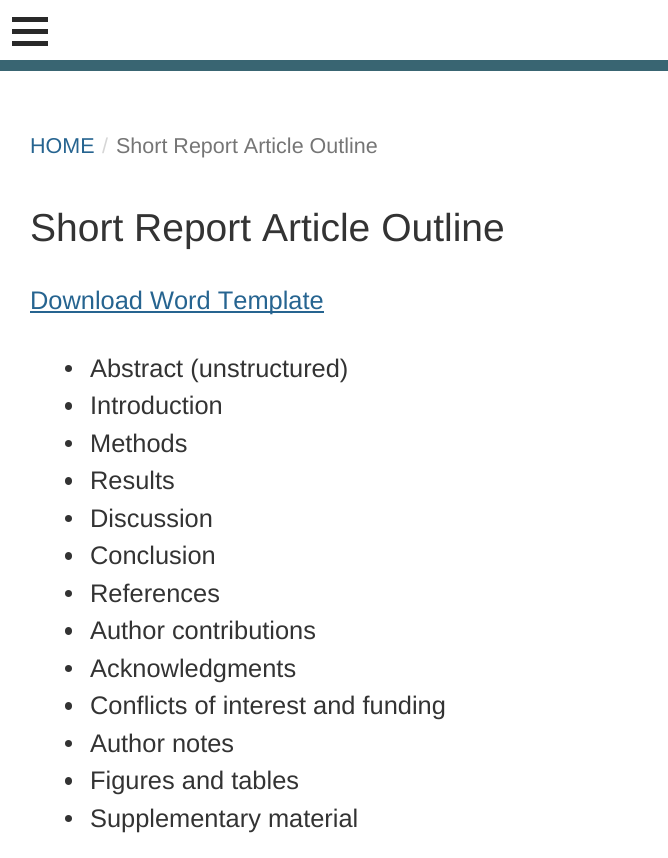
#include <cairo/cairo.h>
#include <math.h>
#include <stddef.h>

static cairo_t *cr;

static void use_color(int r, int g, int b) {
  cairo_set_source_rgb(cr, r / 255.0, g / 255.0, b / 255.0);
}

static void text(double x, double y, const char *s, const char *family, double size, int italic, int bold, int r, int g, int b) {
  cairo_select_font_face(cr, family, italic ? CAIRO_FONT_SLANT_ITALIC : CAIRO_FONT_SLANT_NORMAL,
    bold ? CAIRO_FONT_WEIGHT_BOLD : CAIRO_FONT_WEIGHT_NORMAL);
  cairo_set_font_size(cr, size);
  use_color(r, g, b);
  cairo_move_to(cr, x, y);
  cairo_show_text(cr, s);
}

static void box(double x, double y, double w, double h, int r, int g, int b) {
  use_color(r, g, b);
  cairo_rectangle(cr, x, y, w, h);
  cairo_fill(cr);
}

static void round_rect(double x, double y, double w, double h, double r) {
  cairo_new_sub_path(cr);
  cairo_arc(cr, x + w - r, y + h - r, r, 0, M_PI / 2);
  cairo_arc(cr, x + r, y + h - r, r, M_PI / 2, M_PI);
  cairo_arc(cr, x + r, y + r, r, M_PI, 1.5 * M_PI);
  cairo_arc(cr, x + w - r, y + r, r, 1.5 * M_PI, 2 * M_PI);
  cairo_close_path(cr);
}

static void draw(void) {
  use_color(255, 255, 255);
  cairo_paint(cr);
  box(0, 60, 668, 11, 57, 101, 114);
  box(12, 41, 36, 5, 41, 41, 41);
  box(12, 17, 36, 5, 41, 41, 41);
  box(12, 29, 36, 5, 41, 41, 41);
  box(30, 311, 294, 2, 38, 100, 144);
  use_color(51, 51, 51);
  cairo_arc(cr, 68.5, 368.5, 3.5, 0, 2 * M_PI);
  cairo_fill(cr);
  round_rect(65, 402, 7, 8, 3.5);
  cairo_fill(cr);
  cairo_arc(cr, 68.5, 443.5, 3.5, 0, 2 * M_PI);
  cairo_fill(cr);
  round_rect(65, 477, 7, 8, 3.5);
  cairo_fill(cr);
  cairo_arc(cr, 68.5, 518.5, 3.5, 0, 2 * M_PI);
  cairo_fill(cr);
  round_rect(65, 552, 7, 8, 3.5);
  cairo_fill(cr);
  cairo_arc(cr, 68.5, 593.5, 3.5, 0, 2 * M_PI);
  cairo_fill(cr);
  round_rect(65, 627, 7, 8, 3.5);
  cairo_fill(cr);
  cairo_arc(cr, 68.5, 668.5, 3.5, 0, 2 * M_PI);
  cairo_fill(cr);
  round_rect(65, 702, 7, 8, 3.5);
  cairo_fill(cr);
  cairo_arc(cr, 68.5, 743.5, 3.5, 0, 2 * M_PI);
  cairo_fill(cr);
  round_rect(65, 777, 7, 8, 3.5);
  cairo_fill(cr);
  cairo_arc(cr, 68.5, 818.5, 3.5, 0, 2 * M_PI);
  cairo_fill(cr);
  text(30, 153, "HOME", "Liberation Sans", 21.5, 0, 0, 38, 100, 144);
  text(102, 153, "/", "Liberation Sans", 21.5, 0, 0, 214, 214, 214);
  text(116, 153, "Short Report Article Outline", "Liberation Sans", 21.5, 0, 0, 117, 117, 117);
  text(30, 241, "Short Report Article Outline", "Liberation Sans", 39, 0, 0, 51, 51, 51);
  text(30, 309, "Download Word Template", "Liberation Sans", 25.4, 0, 0, 38, 100, 144);
  text(90, 377, "Abstract (unstructured)", "Liberation Sans", 25.4, 0, 0, 51, 51, 51);
  text(90, 414, "Introduction", "Liberation Sans", 25.4, 0, 0, 51, 51, 51);
  text(90, 452, "Methods", "Liberation Sans", 25.4, 0, 0, 51, 51, 51);
  text(90, 489, "Results", "Liberation Sans", 25.4, 0, 0, 51, 51, 51);
  text(90, 527, "Discussion", "Liberation Sans", 25.4, 0, 0, 51, 51, 51);
  text(90, 564, "Conclusion", "Liberation Sans", 25.4, 0, 0, 51, 51, 51);
  text(90, 602, "References", "Liberation Sans", 25.4, 0, 0, 51, 51, 51);
  text(90, 639, "Author contributions", "Liberation Sans", 25.4, 0, 0, 51, 51, 51);
  text(90, 677, "Acknowledgments", "Liberation Sans", 25.4, 0, 0, 51, 51, 51);
  text(90, 714, "Conflicts of interest and funding", "Liberation Sans", 25.4, 0, 0, 51, 51, 51);
  text(90, 752, "Author notes", "Liberation Sans", 25.4, 0, 0, 51, 51, 51);
  text(90, 789, "Figures and tables", "Liberation Sans", 25.4, 0, 0, 51, 51, 51);
  text(90, 827, "Supplementary material", "Liberation Sans", 25.4, 0, 0, 51, 51, 51);
}

int main(void) {
  cairo_surface_t *surface = cairo_image_surface_create(CAIRO_FORMAT_RGB24, 668, 858);
  cr = cairo_create(surface);
  cairo_font_options_t *options = cairo_font_options_create();
  cairo_font_options_set_hint_metrics(options, CAIRO_HINT_METRICS_OFF);
  cairo_font_options_set_hint_style(options, CAIRO_HINT_STYLE_NONE);
  cairo_set_font_options(cr, options);
  cairo_set_miter_limit(cr, 4);
  draw();
  cairo_surface_write_to_png(surface, "out.png");
  cairo_font_options_destroy(options);
  cairo_destroy(cr);
  cairo_surface_destroy(surface);
  return 0;
}
